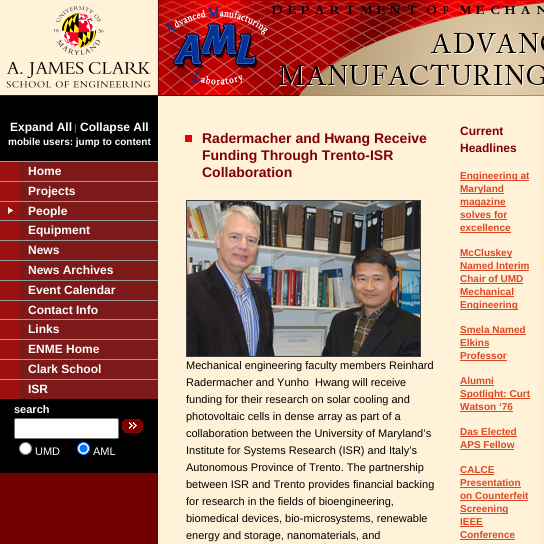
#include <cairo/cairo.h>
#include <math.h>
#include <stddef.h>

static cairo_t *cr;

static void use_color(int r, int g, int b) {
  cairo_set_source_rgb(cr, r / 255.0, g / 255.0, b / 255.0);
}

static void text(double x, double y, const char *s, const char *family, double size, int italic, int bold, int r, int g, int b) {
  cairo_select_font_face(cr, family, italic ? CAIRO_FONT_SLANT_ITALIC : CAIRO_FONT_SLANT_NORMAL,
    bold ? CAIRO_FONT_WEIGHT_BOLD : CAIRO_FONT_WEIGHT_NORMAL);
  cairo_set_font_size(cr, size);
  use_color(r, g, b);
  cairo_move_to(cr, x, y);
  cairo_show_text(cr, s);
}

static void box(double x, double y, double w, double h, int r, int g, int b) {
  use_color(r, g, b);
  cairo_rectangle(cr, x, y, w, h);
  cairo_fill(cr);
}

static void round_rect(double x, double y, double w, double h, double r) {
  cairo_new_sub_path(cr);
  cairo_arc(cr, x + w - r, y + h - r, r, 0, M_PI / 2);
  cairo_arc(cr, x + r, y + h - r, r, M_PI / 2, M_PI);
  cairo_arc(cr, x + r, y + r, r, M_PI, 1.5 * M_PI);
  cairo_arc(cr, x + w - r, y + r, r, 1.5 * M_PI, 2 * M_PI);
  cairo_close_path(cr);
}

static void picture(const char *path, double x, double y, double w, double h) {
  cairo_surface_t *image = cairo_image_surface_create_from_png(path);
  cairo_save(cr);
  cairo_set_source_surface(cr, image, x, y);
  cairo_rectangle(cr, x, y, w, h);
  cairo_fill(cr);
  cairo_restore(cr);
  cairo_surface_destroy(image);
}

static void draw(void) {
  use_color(255, 242, 216);
  cairo_paint(cr);
  picture("img_01.png", 0, 0, 544, 96);
  box(0, 473, 158, 71, 115, 0, 0);
  box(20, 162, 138, 237, 125, 25, 25);
  box(0, 162, 20, 237, 156, 16, 16);
  box(0, 96, 158, 65, 0, 0, 0);
  box(0, 161, 158, 1, 153, 153, 153);
  box(0, 181, 158, 1, 153, 153, 153);
  picture("img_02.png", 8, 207, 5, 7);
  box(0, 201, 158, 1, 153, 153, 153);
  box(0, 220, 158, 1, 153, 153, 153);
  box(0, 240, 158, 1, 153, 153, 153);
  box(0, 260, 158, 1, 153, 153, 153);
  box(0, 280, 158, 1, 153, 153, 153);
  box(0, 300, 158, 1, 153, 153, 153);
  box(0, 319, 158, 1, 153, 153, 153);
  box(0, 339, 158, 1, 153, 153, 153);
  box(0, 359, 158, 1, 153, 153, 153);
  box(0, 379, 158, 1, 153, 153, 153);
  box(0, 399, 158, 74, 0, 0, 0);
  use_color(255, 255, 255);
  round_rect(14.5, 418.5, 104, 20, 1.5);
  cairo_fill_preserve(cr);
  use_color(118, 118, 118);
  cairo_set_line_width(cr, 1);
  cairo_stroke(cr);
  picture("img_03.png", 122, 419, 21, 14);
  use_color(255, 255, 255);
  cairo_arc(cr, 25.5, 448.5, 6, 0, 2 * M_PI);
  cairo_fill_preserve(cr);
  use_color(118, 118, 118);
  cairo_stroke(cr);
  use_color(255, 255, 255);
  cairo_arc(cr, 83.5, 448.5, 6, 0, 2 * M_PI);
  cairo_fill_preserve(cr);
  use_color(0, 117, 255);
  cairo_stroke(cr);
  cairo_arc(cr, 83.5, 448.5, 4, 0, 2 * M_PI);
  cairo_fill(cr);
  box(185, 135, 7, 7, 238, 0, 0);
  picture("img_04.png", 186, 200, 235, 157);
  box(460, 180, 69, 1, 220, 71, 36);
  box(460, 193, 44, 1, 220, 71, 36);
  box(460, 206, 46, 1, 220, 71, 36);
  box(460, 219, 47, 1, 220, 71, 36);
  box(460, 232, 51, 1, 220, 71, 36);
  box(460, 257, 52, 1, 220, 71, 36);
  box(460, 270, 69, 1, 220, 71, 36);
  box(460, 283, 63, 1, 220, 71, 36);
  box(460, 296, 54, 1, 220, 71, 36);
  box(460, 309, 58, 1, 220, 71, 36);
  box(460, 334, 66, 1, 220, 71, 36);
  box(460, 347, 29, 1, 220, 71, 36);
  box(460, 360, 47, 1, 220, 71, 36);
  box(460, 385, 34, 1, 220, 71, 36);
  box(460, 398, 70, 1, 220, 71, 36);
  box(460, 411, 53, 1, 220, 71, 36);
  box(460, 436, 57, 1, 220, 71, 36);
  box(460, 449, 54, 1, 220, 71, 36);
  box(460, 474, 34, 1, 220, 71, 36);
  box(460, 487, 61, 1, 220, 71, 36);
  box(460, 500, 68, 1, 220, 71, 36);
  box(460, 513, 48, 1, 220, 71, 36);
  box(460, 526, 23, 1, 220, 71, 36);
  box(460, 539, 55, 1, 220, 71, 36);
  box(541, 96, 3, 448, 255, 238, 202);
  text(10, 131, "Expand All", "Liberation Sans", 12, 0, 1, 255, 254, 253);
  text(74, 131, "|", "Liberation Sans", 10, 0, 0, 102, 153, 102);
  text(80, 131, "Collapse All", "Liberation Sans", 12, 0, 1, 255, 254, 253);
  text(8, 145, "mobile users: jump to content", "Liberation Sans", 10, 0, 1, 255, 254, 253);
  text(28, 175, "Home", "Liberation Sans", 12, 0, 1, 255, 254, 253);
  text(28, 195, "Projects", "Liberation Sans", 12, 0, 1, 255, 254, 253);
  text(28, 215, "People", "Liberation Sans", 12, 0, 1, 255, 254, 253);
  text(28, 234, "Equipment", "Liberation Sans", 12, 0, 1, 255, 254, 253);
  text(28, 254, "News", "Liberation Sans", 12, 0, 1, 255, 254, 253);
  text(28, 274, "News Archives", "Liberation Sans", 12, 0, 1, 255, 254, 253);
  text(28, 294, "Event Calendar", "Liberation Sans", 12, 0, 1, 255, 254, 253);
  text(28, 314, "Contact Info", "Liberation Sans", 12, 0, 1, 255, 254, 253);
  text(28, 333, "Links", "Liberation Sans", 12, 0, 1, 255, 254, 253);
  text(28, 353, "ENME Home", "Liberation Sans", 12, 0, 1, 255, 254, 253);
  text(28, 373, "Clark School", "Liberation Sans", 12, 0, 1, 255, 254, 253);
  text(28, 393, "ISR", "Liberation Sans", 12, 0, 1, 255, 254, 253);
  text(14, 413, "search", "Liberation Sans", 11, 0, 1, 255, 254, 253);
  text(35, 455, "UMD", "Liberation Sans", 11, 0, 0, 255, 254, 253);
  text(93, 455, "AML", "Liberation Sans", 11, 0, 0, 255, 254, 253);
  text(202, 143, "Radermacher and Hwang Receive", "Liberation Sans", 14, 0, 1, 126, 0, 0);
  text(202, 160, "Funding Through Trento-ISR", "Liberation Sans", 14, 0, 1, 126, 0, 0);
  text(202, 177, "Collaboration", "Liberation Sans", 14, 0, 1, 126, 0, 0);
  text(186, 369, "Mechanical engineering faculty members Reinhard", "Liberation Sans", 11, 0, 0, 0, 0, 0);
  text(186, 386, "Radermacher and Yunho  Hwang will receive", "Liberation Sans", 11, 0, 0, 0, 0, 0);
  text(186, 403, "funding for their research on solar cooling and", "Liberation Sans", 11, 0, 0, 0, 0, 0);
  text(186, 420, "photovoltaic cells in dense array as part of a", "Liberation Sans", 11, 0, 0, 0, 0, 0);
  text(186, 437, "collaboration between the University of Maryland’s", "Liberation Sans", 11, 0, 0, 0, 0, 0);
  text(186, 454, "Institute for Systems Research (ISR) and Italy’s", "Liberation Sans", 11, 0, 0, 0, 0, 0);
  text(186, 471, "Autonomous Province of Trento. The partnership", "Liberation Sans", 11, 0, 0, 0, 0, 0);
  text(186, 488, "between ISR and Trento provides financial backing", "Liberation Sans", 11, 0, 0, 0, 0, 0);
  text(186, 505, "for research in the fields of bioengineering,", "Liberation Sans", 11, 0, 0, 0, 0, 0);
  text(186, 522, "biomedical devices, bio-microsystems, renewable", "Liberation Sans", 11, 0, 0, 0, 0, 0);
  text(186, 539, "energy and storage, nanomaterials, and", "Liberation Sans", 11, 0, 0, 0, 0, 0);
  text(460, 135, "Current", "Liberation Sans", 12, 0, 1, 126, 0, 0);
  text(460, 152, "Headlines", "Liberation Sans", 12, 0, 1, 126, 0, 0);
  text(460, 179, "Engineering at", "Liberation Sans", 10, 0, 1, 220, 71, 36);
  text(460, 192, "Maryland", "Liberation Sans", 10, 0, 1, 220, 71, 36);
  text(460, 205, "magazine", "Liberation Sans", 10, 0, 1, 220, 71, 36);
  text(460, 218, "solves for", "Liberation Sans", 10, 0, 1, 220, 71, 36);
  text(460, 231, "excellence", "Liberation Sans", 10, 0, 1, 220, 71, 36);
  text(460, 256, "McCluskey", "Liberation Sans", 10, 0, 1, 220, 71, 36);
  text(460, 269, "Named Interim", "Liberation Sans", 10, 0, 1, 220, 71, 36);
  text(460, 282, "Chair of UMD", "Liberation Sans", 10, 0, 1, 220, 71, 36);
  text(460, 295, "Mechanical", "Liberation Sans", 10, 0, 1, 220, 71, 36);
  text(460, 308, "Engineering", "Liberation Sans", 10, 0, 1, 220, 71, 36);
  text(460, 333, "Smela Named", "Liberation Sans", 10, 0, 1, 220, 71, 36);
  text(460, 346, "Elkins", "Liberation Sans", 10, 0, 1, 220, 71, 36);
  text(460, 359, "Professor", "Liberation Sans", 10, 0, 1, 220, 71, 36);
  text(460, 384, "Alumni", "Liberation Sans", 10, 0, 1, 220, 71, 36);
  text(460, 397, "Spotlight: Curt", "Liberation Sans", 10, 0, 1, 220, 71, 36);
  text(460, 410, "Watson ‘76", "Liberation Sans", 10, 0, 1, 220, 71, 36);
  text(460, 435, "Das Elected", "Liberation Sans", 10, 0, 1, 220, 71, 36);
  text(460, 448, "APS Fellow", "Liberation Sans", 10, 0, 1, 220, 71, 36);
  text(460, 473, "CALCE", "Liberation Sans", 10, 0, 1, 220, 71, 36);
  text(460, 486, "Presentation", "Liberation Sans", 10, 0, 1, 220, 71, 36);
  text(460, 499, "on Counterfeit", "Liberation Sans", 10, 0, 1, 220, 71, 36);
  text(460, 512, "Screening", "Liberation Sans", 10, 0, 1, 220, 71, 36);
  text(460, 525, "IEEE", "Liberation Sans", 10, 0, 1, 220, 71, 36);
  text(460, 538, "Conference", "Liberation Sans", 10, 0, 1, 220, 71, 36);
}

int main(void) {
  cairo_surface_t *surface = cairo_image_surface_create(CAIRO_FORMAT_RGB24, 544, 544);
  cr = cairo_create(surface);
  cairo_font_options_t *options = cairo_font_options_create();
  cairo_font_options_set_hint_metrics(options, CAIRO_HINT_METRICS_OFF);
  cairo_font_options_set_hint_style(options, CAIRO_HINT_STYLE_NONE);
  cairo_set_font_options(cr, options);
  cairo_set_miter_limit(cr, 4);
  draw();
  cairo_surface_write_to_png(surface, "out.png");
  cairo_font_options_destroy(options);
  cairo_destroy(cr);
  cairo_surface_destroy(surface);
  return 0;
}
